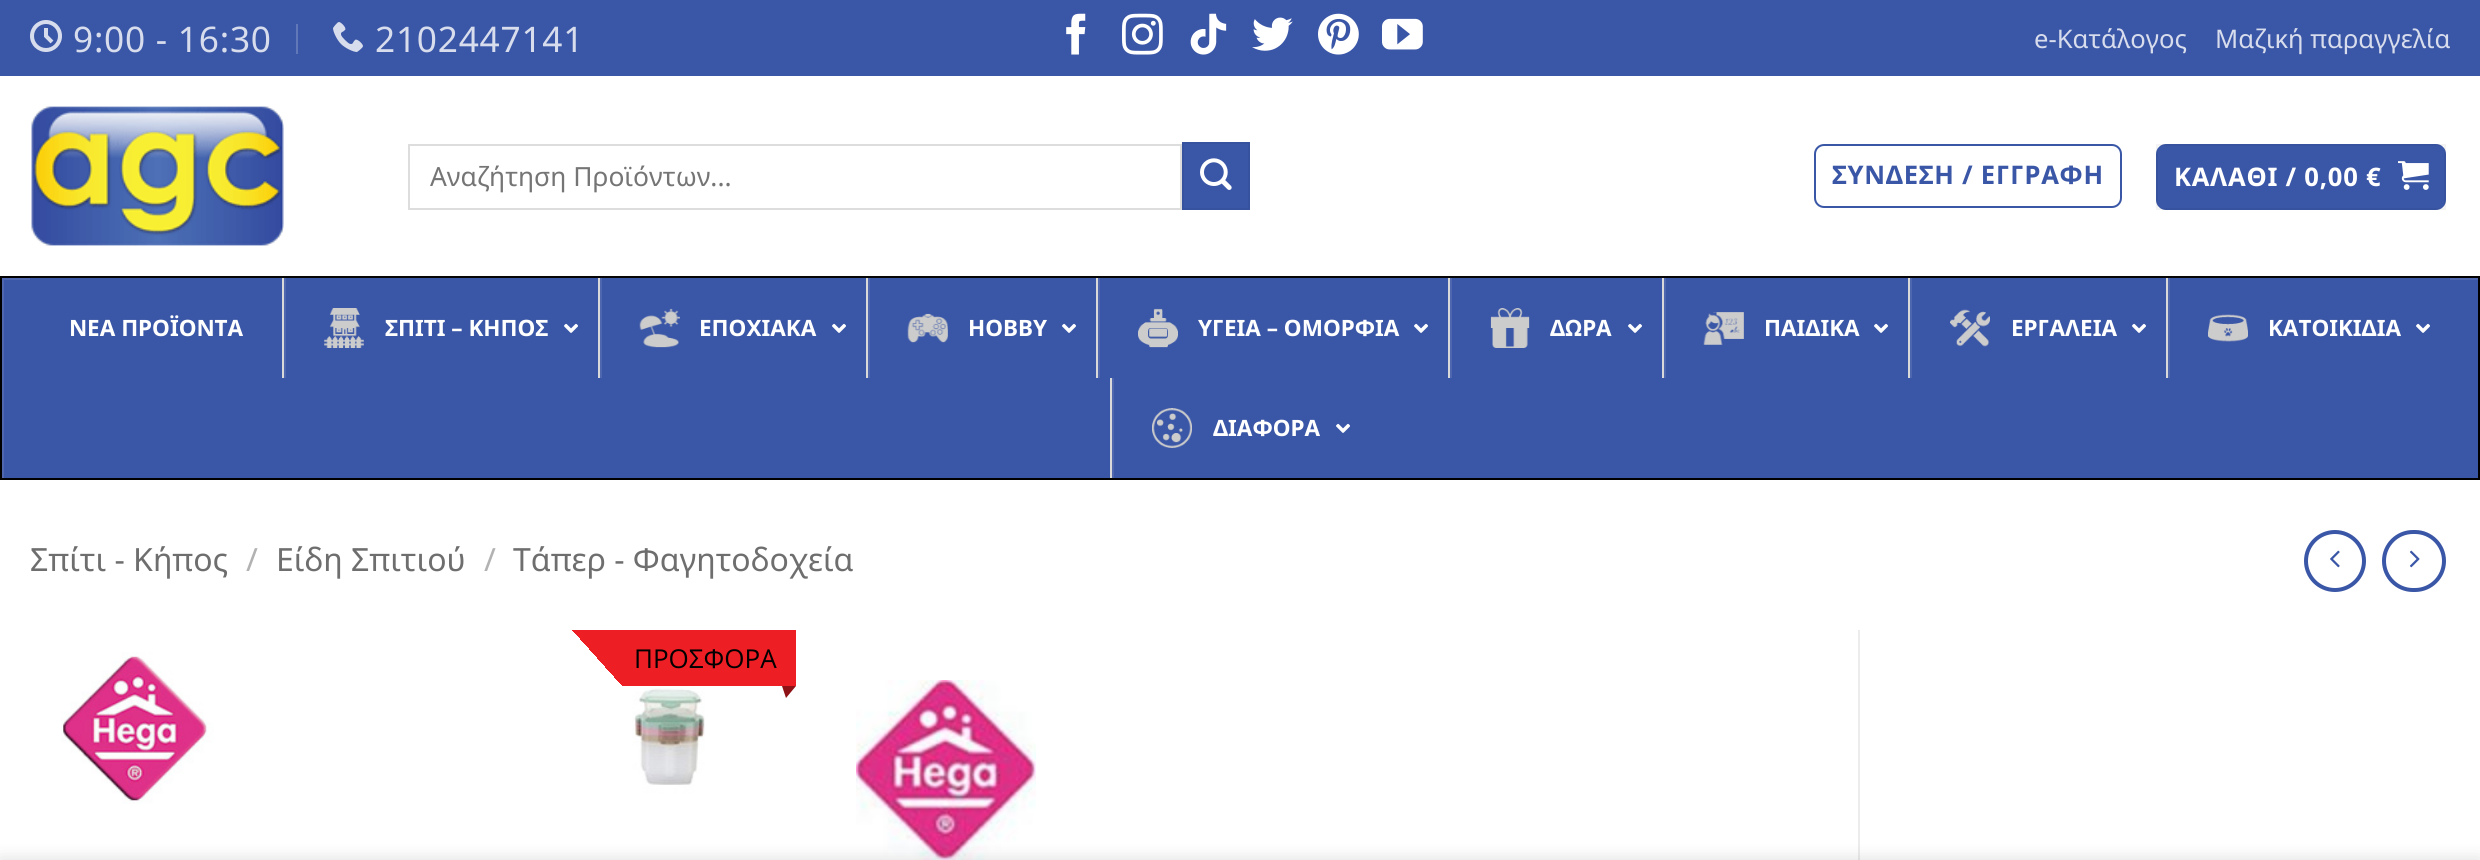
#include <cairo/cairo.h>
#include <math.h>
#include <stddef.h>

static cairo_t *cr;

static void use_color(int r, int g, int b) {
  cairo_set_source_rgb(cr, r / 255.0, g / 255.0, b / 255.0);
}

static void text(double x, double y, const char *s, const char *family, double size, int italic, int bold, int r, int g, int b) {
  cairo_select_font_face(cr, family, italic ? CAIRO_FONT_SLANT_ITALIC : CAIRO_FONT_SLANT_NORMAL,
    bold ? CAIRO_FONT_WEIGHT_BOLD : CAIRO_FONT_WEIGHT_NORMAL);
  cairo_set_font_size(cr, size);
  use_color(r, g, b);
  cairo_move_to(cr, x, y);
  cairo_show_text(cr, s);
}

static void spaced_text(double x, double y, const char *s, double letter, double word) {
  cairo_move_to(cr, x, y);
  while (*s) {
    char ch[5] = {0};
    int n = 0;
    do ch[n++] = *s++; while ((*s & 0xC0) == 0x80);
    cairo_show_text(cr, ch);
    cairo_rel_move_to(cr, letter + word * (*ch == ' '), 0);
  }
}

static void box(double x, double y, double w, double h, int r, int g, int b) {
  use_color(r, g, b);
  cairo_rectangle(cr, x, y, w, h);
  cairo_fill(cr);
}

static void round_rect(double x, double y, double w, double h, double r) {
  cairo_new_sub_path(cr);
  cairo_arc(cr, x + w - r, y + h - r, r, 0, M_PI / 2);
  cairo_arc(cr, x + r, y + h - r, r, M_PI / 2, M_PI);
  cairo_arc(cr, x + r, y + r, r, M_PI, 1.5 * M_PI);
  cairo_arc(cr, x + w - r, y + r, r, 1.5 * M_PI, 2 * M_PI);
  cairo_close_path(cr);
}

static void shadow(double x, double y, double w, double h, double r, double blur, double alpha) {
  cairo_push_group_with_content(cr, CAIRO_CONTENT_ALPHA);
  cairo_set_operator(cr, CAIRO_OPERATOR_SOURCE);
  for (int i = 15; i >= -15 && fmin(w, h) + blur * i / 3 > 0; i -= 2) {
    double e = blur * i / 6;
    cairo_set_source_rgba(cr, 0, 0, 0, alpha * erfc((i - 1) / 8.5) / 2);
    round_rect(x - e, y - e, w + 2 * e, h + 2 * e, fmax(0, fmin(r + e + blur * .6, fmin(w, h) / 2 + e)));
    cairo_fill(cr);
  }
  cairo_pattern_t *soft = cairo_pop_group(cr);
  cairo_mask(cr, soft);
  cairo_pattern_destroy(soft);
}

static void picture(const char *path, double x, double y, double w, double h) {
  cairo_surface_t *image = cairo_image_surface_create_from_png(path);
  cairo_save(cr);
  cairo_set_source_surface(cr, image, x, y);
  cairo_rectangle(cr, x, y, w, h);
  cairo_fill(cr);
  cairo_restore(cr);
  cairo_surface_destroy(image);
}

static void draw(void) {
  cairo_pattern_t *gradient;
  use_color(255, 255, 255);
  cairo_paint(cr);
  box(0, 0, 2480, 76, 58, 86, 166);
  picture("img_01.png", 30, 20, 32, 32);
  box(296, 24, 2, 30, 97, 120, 184);
  picture("img_02.png", 333, 22, 30, 30);
  picture("img_03.png", 1066, 13, 20, 42);
  picture("img_04.png", 1122, 13, 41, 42);
  picture("img_05.png", 1190, 13, 37, 42);
  picture("img_06.png", 1252, 17, 41, 34);
  picture("img_07.png", 1318, 13, 41, 42);
  picture("img_08.png", 1382, 18, 41, 32);
  picture("img_09.png", 31, 106, 253, 140);
  cairo_rectangle(cr, 409, 145, 772, 64);
  use_color(221, 221, 221);
  cairo_stroke(cr);
  use_color(58, 86, 166);
  cairo_rectangle(cr, 1183, 143, 66, 66);
  cairo_fill_preserve(cr);
  use_color(55, 82, 158);
  cairo_stroke(cr);
  picture("img_10.png", 1200, 158, 32, 32);
  round_rect(1815, 145, 306, 62, 9);
  use_color(58, 86, 166);
  cairo_stroke(cr);
  round_rect(2156, 144, 290, 66, 10);
  cairo_fill(cr);
  cairo_rectangle(cr, 2157, 145, 288, 64);
  cairo_set_source_rgba(cr, 0, 0, 0, 0.05);
  cairo_stroke(cr);
  picture("img_11.png", 2398, 161, 31, 29);
  box(4, 280, 2474, 198, 58, 86, 166);
  cairo_save(cr);
  cairo_rectangle(cr, 2, 278, 2476, 200);
  cairo_clip(cr);
  use_color(78, 103, 175);
  cairo_set_fill_rule(cr, CAIRO_FILL_RULE_EVEN_ODD);
  cairo_new_path(cr);
  cairo_move_to(cr, -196, 80);
  cairo_line_to(cr, 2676, 80);
  cairo_line_to(cr, 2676, 676);
  cairo_line_to(cr, -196, 676);
  cairo_close_path(cr);
  cairo_move_to(cr, 4, 280);
  cairo_line_to(cr, 2480, 280);
  cairo_line_to(cr, 2480, 480);
  cairo_line_to(cr, 4, 480);
  cairo_close_path(cr);
  cairo_fill(cr);
  cairo_restore(cr);
  cairo_rectangle(cr, 1, 277, 2478, 202);
  use_color(0, 0, 0);
  cairo_stroke(cr);
  box(30, 276, 2420, 2, 6, 6, 6);
  box(30, 278, 252, 2, 58, 86, 166);
  box(286, 278, 312, 2, 58, 86, 166);
  box(284, 278, 2, 100, 78, 103, 175);
  box(282, 278, 2, 100, 217, 217, 217);
  picture("img_12.png", 324, 308, 40, 40);
  picture("img_13.png", 564, 323, 14, 10);
  box(602, 278, 264, 2, 58, 86, 166);
  box(600, 278, 2, 100, 78, 103, 175);
  box(598, 278, 2, 100, 217, 217, 217);
  picture("img_14.png", 639, 308, 41, 40);
  picture("img_13.png", 832, 323, 14, 10);
  box(870, 278, 226, 2, 58, 86, 166);
  box(868, 278, 2, 100, 78, 103, 175);
  box(866, 278, 2, 100, 217, 217, 217);
  picture("img_15.png", 907, 313, 41, 30);
  picture("img_13.png", 1062, 323, 14, 10);
  box(1100, 278, 348, 2, 58, 86, 166);
  box(1098, 278, 2, 100, 78, 103, 175);
  box(1096, 278, 2, 100, 217, 217, 217);
  picture("img_16.png", 1138, 308, 40, 40);
  picture("img_13.png", 1414, 323, 14, 10);
  box(1452, 278, 210, 2, 58, 86, 166);
  box(1450, 278, 2, 100, 78, 103, 175);
  box(1448, 278, 2, 100, 217, 217, 217);
  picture("img_17.png", 1490, 308, 40, 40);
  picture("img_13.png", 1628, 323, 14, 10);
  box(1666, 278, 242, 2, 58, 86, 166);
  box(1664, 278, 2, 100, 78, 103, 175);
  box(1662, 278, 2, 100, 217, 217, 217);
  picture("img_18.png", 1703, 312, 41, 33);
  picture("img_13.png", 1874, 323, 14, 10);
  box(1912, 278, 254, 2, 58, 86, 166);
  box(1910, 278, 2, 100, 78, 103, 175);
  box(1908, 278, 2, 100, 217, 217, 217);
  picture("img_19.png", 1950, 309, 40, 38);
  picture("img_13.png", 2132, 323, 14, 10);
  box(2170, 278, 280, 2, 58, 86, 166);
  box(2168, 278, 2, 100, 78, 103, 175);
  box(2166, 278, 2, 100, 217, 217, 217);
  picture("img_20.png", 2208, 314, 40, 28);
  picture("img_13.png", 2416, 323, 14, 10);
  box(1112, 378, 2, 100, 78, 103, 175);
  box(1110, 378, 2, 100, 217, 217, 217);
  picture("img_21.png", 1152, 408, 40, 40);
  picture("img_13.png", 1336, 423, 14, 10);
  cairo_arc(cr, 2335, 561, 29, 0, 2 * M_PI);
  use_color(58, 86, 166);
  cairo_set_line_width(cr, 4);
  cairo_stroke(cr);
  picture("img_22.png", 2330, 550, 10, 18);
  round_rect(2384, 532, 60, 58, 29);
  cairo_stroke(cr);
  picture("img_23.png", 2409, 550, 11, 18);
  picture("img_24.png", 61, 652, 644, 152);
  gradient = cairo_pattern_create_linear(569, 683, 625, 633);
  cairo_pattern_add_color_stop_rgba(gradient, 0.5, 1, 1, 1, 1);
  cairo_pattern_add_color_stop_rgba(gradient, 0.5, 0.929, 0.118, 0.141, 1);
  cairo_set_source(cr, gradient);
  cairo_pattern_destroy(gradient);
  cairo_rectangle(cr, 572, 630, 50, 55);
  cairo_fill(cr);
  box(622, 630, 174, 56, 237, 30, 36);
  use_color(142, 18, 21);
  cairo_new_path(cr);
  cairo_move_to(cr, 782, 686);
  cairo_line_to(cr, 796, 686);
  cairo_line_to(cr, 786, 698);
  cairo_close_path(cr);
  cairo_fill(cr);
  box(1858, 630, 2, 230, 236, 236, 236);
  picture("img_25.png", 856, 680, 180, 180);
  use_color(0, 0, 0);
  shadow(0, 860, 2480, 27, 0, 9, 0.14);
  cairo_select_font_face(cr, "Noto Sans", CAIRO_FONT_SLANT_NORMAL, CAIRO_FONT_WEIGHT_NORMAL);
  cairo_set_font_size(cr, 35.25);
  use_color(216, 221, 237);
  spaced_text(73, 52, "9:00 - 16:30", 0.75, 0);
  spaced_text(375, 52, "2102447141", 0.75, 0);
  text(2034, 48, "e-Κατάλογος", "Noto Sans", 25.6, 0, 0, 216, 221, 237);
  text(2215, 48, "Μαζική παραγγελία", "Noto Sans", 25.6, 0, 0, 216, 221, 237);
  text(430, 186, "Αναζήτηση Προϊόντων...", "Noto Sans", 26.4, 0, 0, 117, 117, 117);
  cairo_select_font_face(cr, "Noto Sans", CAIRO_FONT_SLANT_NORMAL, CAIRO_FONT_WEIGHT_BOLD);
  cairo_set_font_size(cr, 25.6);
  use_color(58, 86, 166);
  spaced_text(1832, 184, "ΣΥΝΔΕΣΗ / ΕΓΓΡΑΦΗ", 0.75, 0);
  use_color(255, 255, 255);
  spaced_text(2174, 186, "ΚΑΛΑΘΙ / 0,00 €", 0.75, 0);
  text(69, 336, "ΝΕΑ ΠΡΟΪΟΝΤΑ", "Noto Sans", 22.5, 0, 1, 255, 255, 255);
  text(385, 336, "ΣΠΙΤΙ – ΚΗΠΟΣ", "Noto Sans", 22.5, 0, 1, 255, 255, 255);
  text(699, 336, "ΕΠΟΧΙΑΚΑ", "Noto Sans", 22.5, 0, 1, 255, 255, 255);
  text(968, 336, "HOBBY", "Noto Sans", 22.5, 0, 1, 255, 255, 255);
  text(1198, 336, "ΥΓΕΙΑ – ΟΜΟΡΦΙΑ", "Noto Sans", 22.5, 0, 1, 255, 255, 255);
  text(1550, 336, "ΔΩΡΑ", "Noto Sans", 22.5, 0, 1, 255, 255, 255);
  text(1764, 336, "ΠΑΙΔΙΚΑ", "Noto Sans", 22.5, 0, 1, 255, 255, 255);
  text(2011, 336, "ΕΡΓΑΛΕΙΑ", "Noto Sans", 22.5, 0, 1, 255, 255, 255);
  text(2268, 336, "ΚΑΤΟΙΚΙΔΙΑ", "Noto Sans", 22.5, 0, 1, 255, 255, 255);
  text(1213, 436, "ΔΙΑΦΟΡΑ", "Noto Sans", 22.5, 0, 1, 255, 255, 255);
  text(30, 571, "Σπίτι - Κήπος", "Noto Sans", 32, 0, 0, 110, 110, 110);
  text(246, 571, "/", "Noto Sans", 32, 0, 0, 178, 178, 178);
  text(276, 571, "Είδη Σπιτιού", "Noto Sans", 32, 0, 0, 110, 110, 110);
  text(484, 571, "/", "Noto Sans", 32, 0, 0, 178, 178, 178);
  text(513, 571, "Τάπερ - Φαγητοδοχεία", "Noto Sans", 32, 0, 0, 110, 110, 110);
  text(634, 668, "ΠΡΟΣΦΟΡΑ", "Open Sans", 26, 0, 0, 0, 0, 0);
}

int main(void) {
  cairo_surface_t *surface = cairo_image_surface_create(CAIRO_FORMAT_RGB24, 2480, 860);
  cr = cairo_create(surface);
  cairo_font_options_t *options = cairo_font_options_create();
  cairo_font_options_set_hint_metrics(options, CAIRO_HINT_METRICS_OFF);
  cairo_font_options_set_hint_style(options, CAIRO_HINT_STYLE_NONE);
  cairo_set_font_options(cr, options);
  cairo_set_miter_limit(cr, 4);
  draw();
  cairo_surface_write_to_png(surface, "out.png");
  cairo_font_options_destroy(options);
  cairo_destroy(cr);
  cairo_surface_destroy(surface);
  return 0;
}
